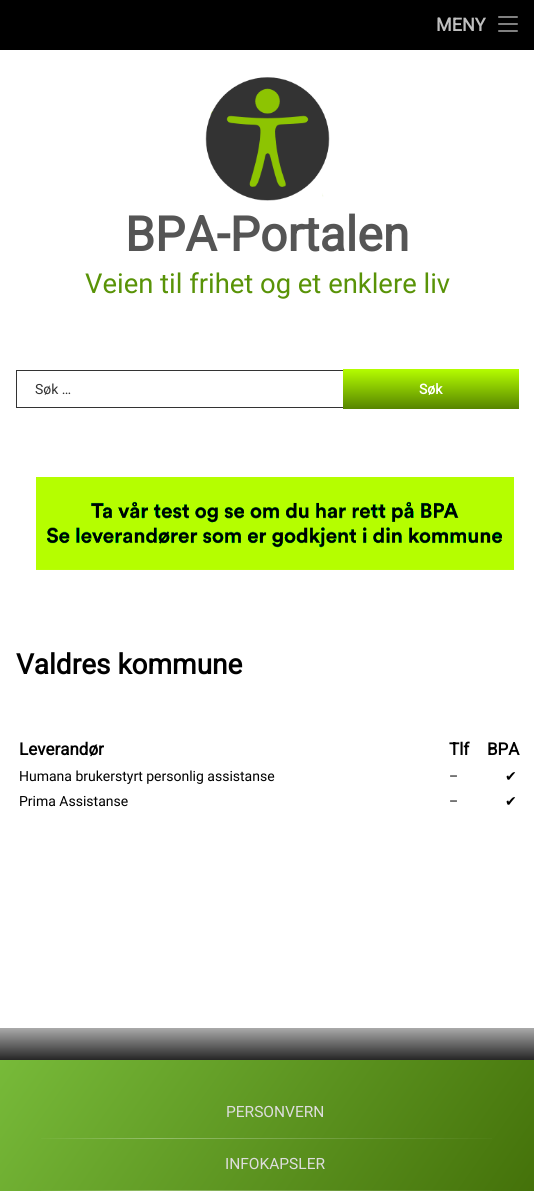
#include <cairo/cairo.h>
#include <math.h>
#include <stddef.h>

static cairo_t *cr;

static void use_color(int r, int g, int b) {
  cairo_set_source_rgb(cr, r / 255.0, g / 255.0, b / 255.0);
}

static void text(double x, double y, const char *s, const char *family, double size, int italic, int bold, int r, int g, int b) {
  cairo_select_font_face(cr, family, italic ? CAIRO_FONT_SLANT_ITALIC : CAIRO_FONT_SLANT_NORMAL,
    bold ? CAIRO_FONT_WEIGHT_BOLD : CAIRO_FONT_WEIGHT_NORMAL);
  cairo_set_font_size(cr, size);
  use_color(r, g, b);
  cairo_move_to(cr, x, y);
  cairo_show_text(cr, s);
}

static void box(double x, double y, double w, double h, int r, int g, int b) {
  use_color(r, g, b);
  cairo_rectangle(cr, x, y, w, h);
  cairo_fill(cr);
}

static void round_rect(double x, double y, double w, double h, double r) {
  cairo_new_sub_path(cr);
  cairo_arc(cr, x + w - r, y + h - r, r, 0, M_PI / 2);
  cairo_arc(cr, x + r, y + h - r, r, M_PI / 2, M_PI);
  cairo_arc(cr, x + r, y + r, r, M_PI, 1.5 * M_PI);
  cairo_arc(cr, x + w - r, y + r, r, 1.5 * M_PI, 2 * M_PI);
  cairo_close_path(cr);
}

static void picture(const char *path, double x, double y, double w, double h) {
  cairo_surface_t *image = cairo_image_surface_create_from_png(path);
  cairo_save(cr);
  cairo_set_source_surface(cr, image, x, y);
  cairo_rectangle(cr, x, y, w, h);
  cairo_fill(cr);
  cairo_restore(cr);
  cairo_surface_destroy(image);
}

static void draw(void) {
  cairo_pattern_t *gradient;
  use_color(255, 255, 255);
  cairo_paint(cr);
  box(0, 0, 534, 50, 0, 0, 0);
  use_color(128, 128, 128);
  round_rect(498, 16, 20, 2, 1);
  cairo_fill(cr);
  round_rect(498, 23, 20, 2, 1);
  cairo_fill(cr);
  round_rect(498, 30, 20, 2, 1);
  cairo_fill(cr);
  picture("img_01.png", 205, 77, 125, 124);
  cairo_rectangle(cr, 16.5, 370.5, 499, 37);
  use_color(51, 51, 51);
  cairo_set_line_width(cr, 1);
  cairo_stroke(cr);
  gradient = cairo_pattern_create_linear(431, 369, 431, 409);
  cairo_pattern_add_color_stop_rgba(gradient, 0, 0.71, 0.996, 0, 1);
  cairo_pattern_add_color_stop_rgba(gradient, 1, 0.337, 0.518, 0, 1);
  cairo_set_source(cr, gradient);
  cairo_pattern_destroy(gradient);
  cairo_rectangle(cr, 343, 369, 176, 40);
  cairo_fill(cr);
  picture("img_02.png", 36, 477, 478, 93);
  gradient = cairo_pattern_create_linear(267, 1028, 267, 1060);
  cairo_pattern_add_color_stop_rgba(gradient, 0, 0.667, 0.667, 0.667, 1);
  cairo_pattern_add_color_stop_rgba(gradient, 1, 0.149, 0.149, 0.149, 1);
  cairo_set_source(cr, gradient);
  cairo_pattern_destroy(gradient);
  cairo_rectangle(cr, 0, 1028, 534, 32);
  cairo_fill(cr);
  gradient = cairo_pattern_create_linear(15, 1039, 519, 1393);
  cairo_pattern_add_color_stop_rgba(gradient, 0, 0.467, 0.729, 0.224, 1);
  cairo_pattern_add_color_stop_rgba(gradient, 1, 0.227, 0.388, 0, 1);
  cairo_set_source(cr, gradient);
  cairo_pattern_destroy(gradient);
  cairo_rectangle(cr, 0, 1060, 534, 131);
  cairo_fill(cr);
  gradient = cairo_pattern_create_linear(32, 1139, 518, 1139);
  cairo_pattern_add_color_stop_rgba(gradient, 0, 1, 1, 1, 0);
  cairo_pattern_add_color_stop_rgba(gradient, 0.25, 1, 1, 1, 0.3);
  cairo_pattern_add_color_stop_rgba(gradient, 1, 1, 1, 1, 0);
  cairo_set_source(cr, gradient);
  cairo_pattern_destroy(gradient);
  cairo_rectangle(cr, 41, 1138, 451, 1);
  cairo_fill(cr);
  gradient = cairo_pattern_create_linear(32, 1191, 518, 1191);
  cairo_pattern_add_color_stop_rgba(gradient, 0, 1, 1, 1, 0);
  cairo_pattern_add_color_stop_rgba(gradient, 0.25, 1, 1, 1, 0.3);
  cairo_pattern_add_color_stop_rgba(gradient, 1, 1, 1, 1, 0);
  cairo_set_source(cr, gradient);
  cairo_pattern_destroy(gradient);
  cairo_rectangle(cr, 41, 1190, 451, 1);
  cairo_fill(cr);
  text(436, 31, "MENY", "Roboto", 18, 0, 1, 191, 191, 191);
  text(125, 251, "BPA-Portalen", "Roboto", 48, 0, 1, 85, 85, 85);
  text(85, 293, "Veien til frihet og et enklere liv", "Roboto", 27.4, 0, 0, 89, 147, 7);
  text(35, 394, "Søk …", "Roboto", 14, 0, 0, 51, 51, 51);
  text(419, 394, "Søk", "Roboto", 14, 0, 1, 255, 255, 255);
  text(16, 674, "Valdres kommune", "Roboto", 28, 0, 1, 0, 0, 0);
  text(19, 755, "Leverandør", "Roboto", 17, 0, 1, 0, 0, 0);
  text(449, 755, "Tlf", "Roboto", 17, 0, 1, 0, 0, 0);
  text(487, 755, "BPA", "Roboto", 17, 0, 1, 0, 0, 0);
  text(19, 781, "Humana brukerstyrt personlig assistanse", "Roboto", 14, 0, 0, 0, 0, 0);
  text(449, 781, "–", "Roboto", 14, 0, 0, 0, 0, 0);
  text(505, 781, "✔", "DejaVu Sans", 14, 0, 0, 0, 0, 0);
  text(19, 806, "Prima Assistanse", "Roboto", 14, 0, 0, 0, 0, 0);
  text(449, 806, "–", "Roboto", 14, 0, 0, 0, 0, 0);
  text(505, 806, "✔", "DejaVu Sans", 14, 0, 0, 0, 0, 0);
  text(226, 1117, "PERSONVERN", "Roboto", 15.5, 0, 0, 221, 221, 221);
  text(225, 1169, "INFOKAPSLER", "Roboto", 15.5, 0, 0, 221, 221, 221);
}

int main(void) {
  cairo_surface_t *surface = cairo_image_surface_create(CAIRO_FORMAT_RGB24, 534, 1191);
  cr = cairo_create(surface);
  cairo_font_options_t *options = cairo_font_options_create();
  cairo_font_options_set_hint_metrics(options, CAIRO_HINT_METRICS_OFF);
  cairo_font_options_set_hint_style(options, CAIRO_HINT_STYLE_NONE);
  cairo_set_font_options(cr, options);
  cairo_set_miter_limit(cr, 4);
  draw();
  cairo_surface_write_to_png(surface, "out.png");
  cairo_font_options_destroy(options);
  cairo_destroy(cr);
  cairo_surface_destroy(surface);
  return 0;
}
